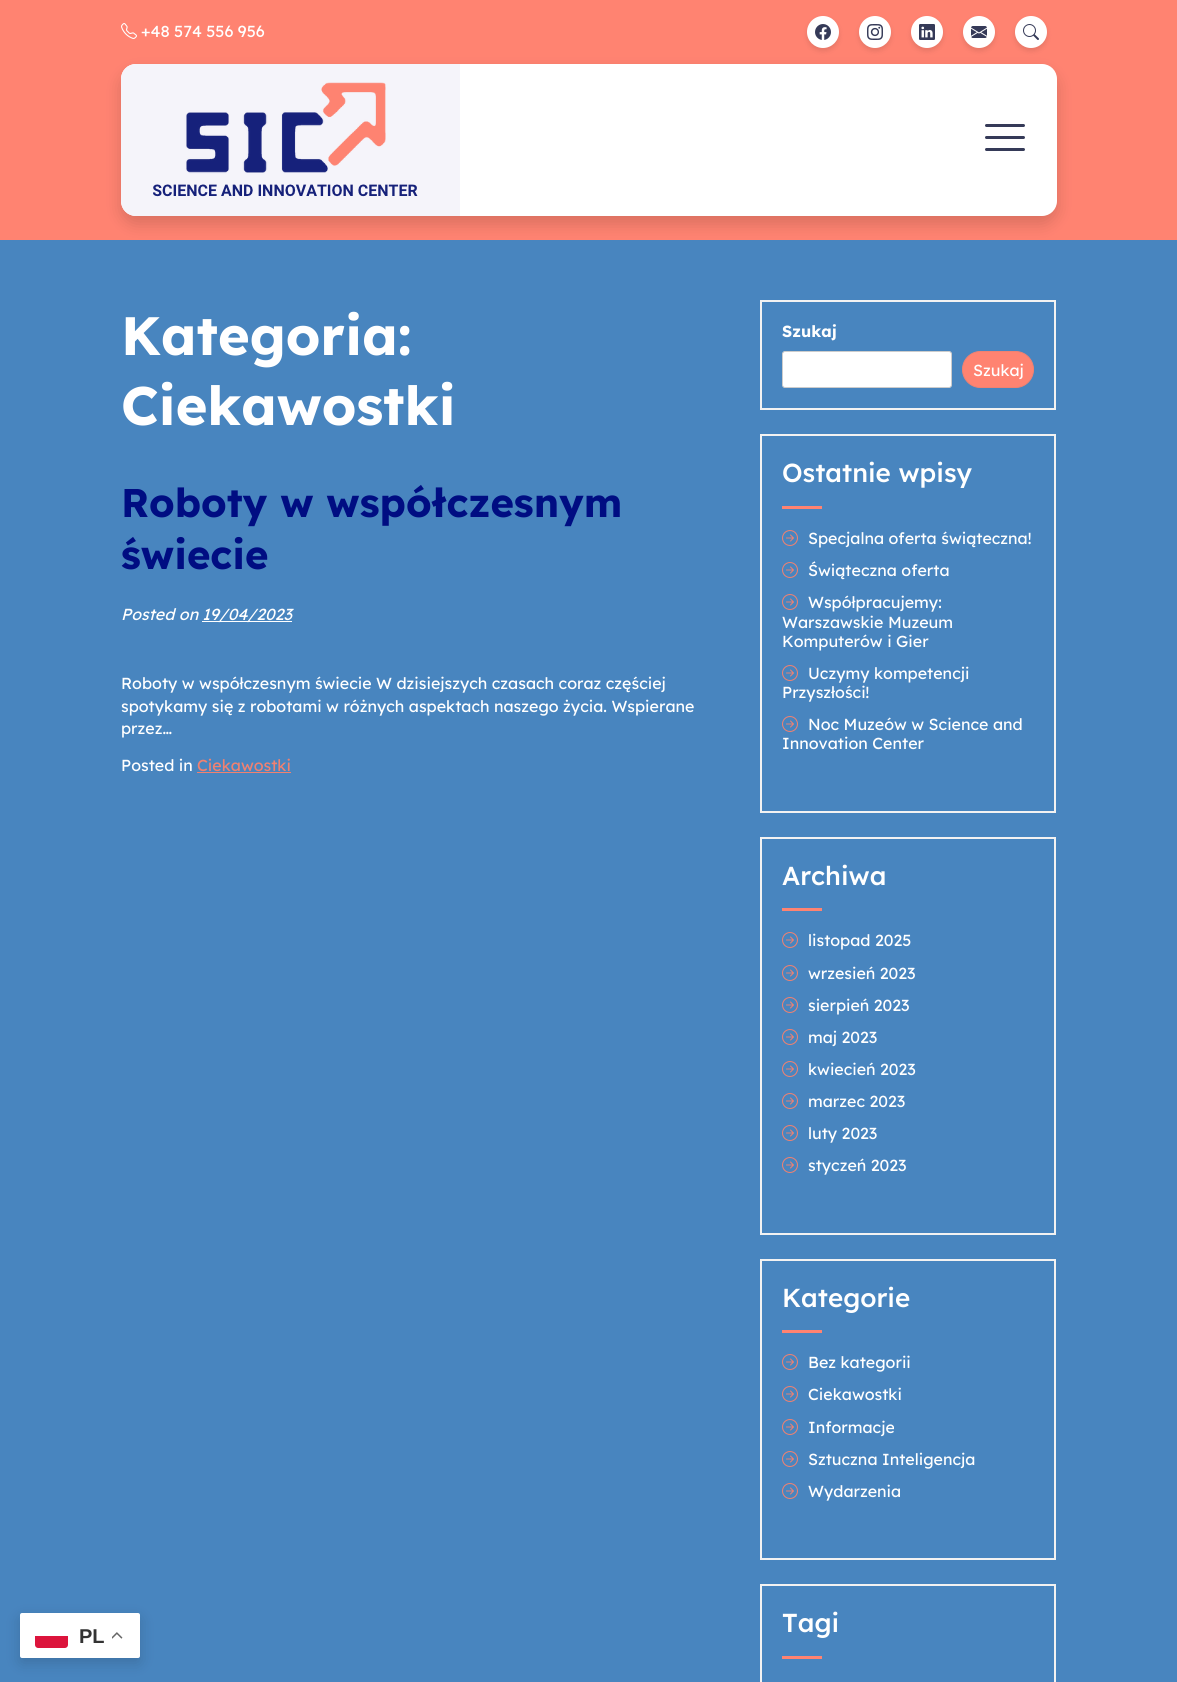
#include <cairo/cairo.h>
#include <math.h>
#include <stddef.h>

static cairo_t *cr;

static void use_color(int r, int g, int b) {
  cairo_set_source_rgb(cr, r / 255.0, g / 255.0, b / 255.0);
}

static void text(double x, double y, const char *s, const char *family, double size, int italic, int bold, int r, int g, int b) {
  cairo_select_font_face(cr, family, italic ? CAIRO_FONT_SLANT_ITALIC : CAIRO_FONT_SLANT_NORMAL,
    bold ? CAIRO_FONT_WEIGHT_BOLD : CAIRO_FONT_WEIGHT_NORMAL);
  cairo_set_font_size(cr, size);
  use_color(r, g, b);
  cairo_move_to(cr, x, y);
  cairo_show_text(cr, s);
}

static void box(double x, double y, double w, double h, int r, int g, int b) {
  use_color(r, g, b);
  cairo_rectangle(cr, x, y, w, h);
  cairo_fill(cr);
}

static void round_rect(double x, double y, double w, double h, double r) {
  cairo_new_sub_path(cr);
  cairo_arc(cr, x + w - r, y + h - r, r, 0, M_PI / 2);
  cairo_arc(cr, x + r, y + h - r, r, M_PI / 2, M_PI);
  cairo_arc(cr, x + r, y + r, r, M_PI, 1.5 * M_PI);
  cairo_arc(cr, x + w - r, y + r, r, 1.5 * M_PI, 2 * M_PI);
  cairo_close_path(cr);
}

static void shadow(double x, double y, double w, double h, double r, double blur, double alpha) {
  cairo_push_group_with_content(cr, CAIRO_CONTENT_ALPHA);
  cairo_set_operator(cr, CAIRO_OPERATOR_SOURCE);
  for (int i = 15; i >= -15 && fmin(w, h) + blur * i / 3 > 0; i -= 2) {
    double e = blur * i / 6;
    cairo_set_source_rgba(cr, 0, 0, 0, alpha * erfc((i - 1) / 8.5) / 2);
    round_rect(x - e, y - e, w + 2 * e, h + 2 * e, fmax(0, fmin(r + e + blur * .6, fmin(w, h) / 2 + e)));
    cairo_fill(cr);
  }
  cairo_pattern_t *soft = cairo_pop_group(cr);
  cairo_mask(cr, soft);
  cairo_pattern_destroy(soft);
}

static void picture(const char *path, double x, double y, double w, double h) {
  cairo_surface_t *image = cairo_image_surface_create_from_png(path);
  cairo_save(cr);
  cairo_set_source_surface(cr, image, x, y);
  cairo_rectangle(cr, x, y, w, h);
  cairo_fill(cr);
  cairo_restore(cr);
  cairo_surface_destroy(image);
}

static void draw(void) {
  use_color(72, 133, 191);
  cairo_paint(cr);
  use_color(0, 0, 0);
  shadow(20, 1618, 120, 45, 2, 7.5, 0.15);
  use_color(255, 255, 255);
  round_rect(20, 1613, 120, 45, 2);
  cairo_fill(cr);
  use_color(220, 20, 60);
  cairo_new_path(cr);
  cairo_move_to(cr, 35, 1636);
  cairo_line_to(cr, 68, 1636);
  cairo_line_to(cr, 68, 1645);
  cairo_curve_to(cr, 68, 1646.5, 66.5, 1648, 65, 1648);
  cairo_line_to(cr, 38, 1648);
  cairo_curve_to(cr, 36.5, 1648, 35, 1646.5, 35, 1645);
  cairo_close_path(cr);
  cairo_fill(cr);
  picture("img_01.png", 112, 1632, 11, 7);
  box(0, 0, 1177, 240, 255, 131, 113);
  picture("img_02.png", 121, 23, 16, 16);
  use_color(0, 0, 0);
  shadow(807, 19, 32, 32, 16, 2.5, 0.1);
  shadow(121, 72, 936, 152, 15, 8, 0.15);
  use_color(255, 255, 255);
  cairo_arc(cr, 823, 32, 16, 0, 2 * M_PI);
  cairo_fill(cr);
  picture("img_03.png", 815, 24, 16, 16);
  use_color(0, 0, 0);
  shadow(859, 19, 32, 32, 16, 2.5, 0.1);
  use_color(255, 255, 255);
  cairo_arc(cr, 875, 32, 16, 0, 2 * M_PI);
  cairo_fill(cr);
  picture("img_04.png", 867, 24, 16, 16);
  use_color(0, 0, 0);
  shadow(911, 19, 32, 32, 16, 2.5, 0.1);
  use_color(255, 255, 255);
  cairo_arc(cr, 927, 32, 16, 0, 2 * M_PI);
  cairo_fill(cr);
  picture("img_05.png", 919, 24, 16, 16);
  use_color(0, 0, 0);
  shadow(963, 19, 32, 32, 16, 2.5, 0.1);
  use_color(255, 255, 255);
  cairo_arc(cr, 979, 32, 16, 0, 2 * M_PI);
  cairo_fill(cr);
  picture("img_06.png", 971, 26, 16, 12);
  use_color(0, 0, 0);
  shadow(1015, 19, 32, 32, 16, 2.5, 0.1);
  use_color(255, 255, 255);
  cairo_arc(cr, 1031, 32, 16, 0, 2 * M_PI);
  cairo_fill(cr);
  picture("img_07.png", 1023, 24, 16, 16);
  round_rect(121, 64, 936, 152, 15);
  cairo_fill(cr);
  use_color(245, 244, 250);
  cairo_new_path(cr);
  cairo_move_to(cr, 136, 64);
  cairo_line_to(cr, 460, 64);
  cairo_line_to(cr, 460, 216);
  cairo_line_to(cr, 136, 216);
  cairo_curve_to(cr, 127.5, 216, 121, 209.5, 121, 201);
  cairo_line_to(cr, 121, 79);
  cairo_curve_to(cr, 121, 70.5, 127.5, 64, 136, 64);
  cairo_close_path(cr);
  cairo_fill(cr);
  picture("img_08.png", 153, 82, 265, 115);
  use_color(53, 58, 88);
  round_rect(985, 124, 40, 3, 1.5);
  cairo_fill(cr);
  round_rect(985, 136, 40, 3, 1.5);
  cairo_fill(cr);
  round_rect(985, 148, 40, 3, 1.5);
  cairo_fill(cr);
  box(202, 621, 90, 1, 255, 255, 255);
  box(197, 772, 94, 1, 241, 129, 112);
  cairo_rectangle(cr, 761, 301, 294, 108);
  use_color(242, 242, 242);
  cairo_stroke(cr);
  use_color(255, 255, 255);
  round_rect(782.5, 351.5, 169, 36, 2.5);
  cairo_fill_preserve(cr);
  use_color(204, 204, 204);
  cairo_set_line_width(cr, 1);
  cairo_stroke(cr);
  use_color(255, 131, 113);
  round_rect(962.5, 351.5, 71, 36, 18);
  cairo_fill_preserve(cr);
  use_color(241, 129, 112);
  cairo_stroke(cr);
  cairo_rectangle(cr, 761, 435, 294, 377);
  use_color(242, 242, 242);
  cairo_set_line_width(cr, 2);
  cairo_stroke(cr);
  box(782, 506, 40, 3, 255, 131, 113);
  picture("img_09.png", 782, 530, 16, 16);
  picture("img_09.png", 782, 562, 16, 16);
  picture("img_09.png", 782, 594, 16, 16);
  picture("img_09.png", 782, 665, 16, 16);
  picture("img_09.png", 782, 716, 16, 16);
  cairo_rectangle(cr, 761, 838, 294, 396);
  use_color(242, 242, 242);
  cairo_stroke(cr);
  box(782, 908, 40, 3, 255, 131, 113);
  picture("img_09.png", 782, 932, 16, 16);
  picture("img_09.png", 782, 965, 16, 16);
  picture("img_09.png", 782, 997, 16, 16);
  picture("img_09.png", 782, 1029, 16, 16);
  picture("img_09.png", 782, 1061, 16, 16);
  picture("img_09.png", 782, 1093, 16, 16);
  picture("img_09.png", 782, 1125, 16, 16);
  picture("img_09.png", 782, 1157, 16, 16);
  cairo_rectangle(cr, 761, 1260, 294, 299);
  use_color(242, 242, 242);
  cairo_stroke(cr);
  box(782, 1330, 40, 3, 255, 131, 113);
  picture("img_09.png", 782, 1354, 16, 16);
  picture("img_09.png", 782, 1386, 16, 16);
  picture("img_09.png", 782, 1419, 16, 16);
  picture("img_09.png", 782, 1451, 16, 16);
  picture("img_09.png", 782, 1483, 16, 16);
  cairo_rectangle(cr, 761, 1585, 294, 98);
  use_color(242, 242, 242);
  cairo_stroke(cr);
  box(782, 1656, 40, 3, 255, 131, 113);
  text(79, 1643, "PL", "Liberation Sans", 20, 0, 1, 51, 51, 51);
  text(141, 37, "+48 574 556 956", "Lexend", 16, 0, 0, 255, 255, 255);
  text(121, 355, "Kategoria:", "Lexend", 54, 0, 1, 255, 255, 255);
  text(121, 425, "Ciekawostki", "Lexend", 54, 0, 1, 255, 255, 255);
  text(121, 517, "Roboty w współczesnym", "Lexend", 40, 0, 1, 0, 13, 130);
  text(121, 569, "świecie", "Lexend", 40, 0, 1, 0, 13, 130);
  text(121, 620, "Posted on", "Lexend", 16, 1, 0, 255, 255, 255);
  text(202, 620, "19/04/2023", "Lexend", 16, 1, 0, 255, 255, 255);
  text(121, 689, "Roboty w współczesnym świecie W dzisiejszych czasach coraz częściej", "Lexend", 16, 0, 0, 255, 255, 255);
  text(121, 712, "spotykamy się z robotami w różnych aspektach naszego życia. Wspierane", "Lexend", 16, 0, 0, 255, 255, 255);
  text(121, 734, "przez…", "Lexend", 16, 0, 0, 255, 255, 255);
  text(121, 771, "Posted in", "Lexend", 16, 0, 0, 255, 255, 255);
  text(197, 771, "Ciekawostki", "Lexend", 16, 0, 0, 241, 129, 112);
  text(782, 337, "Szukaj", "Lexend", 16, 0, 1, 255, 255, 255);
  text(973, 376, "Szukaj", "Lexend", 16, 0, 0, 255, 255, 255);
  text(782, 482, "Ostatnie wpisy", "Lexend Medium", 26, 0, 0, 255, 255, 255);
  text(808, 544, "Specjalna oferta świąteczna!", "Lexend", 16, 0, 0, 255, 255, 255);
  text(808, 576, "Świąteczna oferta", "Lexend", 16, 0, 0, 255, 255, 255);
  text(808, 608, "Współpracujemy:", "Lexend", 16, 0, 0, 255, 255, 255);
  text(782, 628, "Warszawskie Muzeum", "Lexend", 16, 0, 0, 255, 255, 255);
  text(782, 647, "Komputerów i Gier", "Lexend", 16, 0, 0, 255, 255, 255);
  text(808, 679, "Uczymy kompetencji", "Lexend", 16, 0, 0, 255, 255, 255);
  text(782, 698, "Przyszłości!", "Lexend", 16, 0, 0, 255, 255, 255);
  text(808, 730, "Noc Muzeów w Science and", "Lexend", 16, 0, 0, 255, 255, 255);
  text(782, 749, "Innovation Center", "Lexend", 16, 0, 0, 255, 255, 255);
  text(782, 885, "Archiwa", "Lexend Medium", 26, 0, 0, 255, 255, 255);
  text(808, 946, "listopad 2025", "Lexend", 16, 0, 0, 255, 255, 255);
  text(808, 979, "wrzesień 2023", "Lexend", 16, 0, 0, 255, 255, 255);
  text(808, 1011, "sierpień 2023", "Lexend", 16, 0, 0, 255, 255, 255);
  text(808, 1043, "maj 2023", "Lexend", 16, 0, 0, 255, 255, 255);
  text(808, 1075, "kwiecień 2023", "Lexend", 16, 0, 0, 255, 255, 255);
  text(808, 1107, "marzec 2023", "Lexend", 16, 0, 0, 255, 255, 255);
  text(808, 1139, "luty 2023", "Lexend", 16, 0, 0, 255, 255, 255);
  text(808, 1171, "styczeń 2023", "Lexend", 16, 0, 0, 255, 255, 255);
  text(782, 1307, "Kategorie", "Lexend Medium", 26, 0, 0, 255, 255, 255);
  text(808, 1368, "Bez kategorii", "Lexend", 16, 0, 0, 255, 255, 255);
  text(808, 1400, "Ciekawostki", "Lexend", 16, 0, 0, 255, 255, 255);
  text(808, 1433, "Informacje", "Lexend", 16, 0, 0, 255, 255, 255);
  text(808, 1465, "Sztuczna Inteligencja", "Lexend", 16, 0, 0, 255, 255, 255);
  text(808, 1497, "Wydarzenia", "Lexend", 16, 0, 0, 255, 255, 255);
  text(782, 1632, "Tagi", "Lexend Medium", 26, 0, 0, 255, 255, 255);
}

int main(void) {
  cairo_surface_t *surface = cairo_image_surface_create(CAIRO_FORMAT_RGB24, 1177, 1682);
  cr = cairo_create(surface);
  cairo_font_options_t *options = cairo_font_options_create();
  cairo_font_options_set_hint_metrics(options, CAIRO_HINT_METRICS_OFF);
  cairo_font_options_set_hint_style(options, CAIRO_HINT_STYLE_NONE);
  cairo_set_font_options(cr, options);
  cairo_set_miter_limit(cr, 4);
  draw();
  cairo_surface_write_to_png(surface, "out.png");
  cairo_font_options_destroy(options);
  cairo_destroy(cr);
  cairo_surface_destroy(surface);
  return 0;
}
